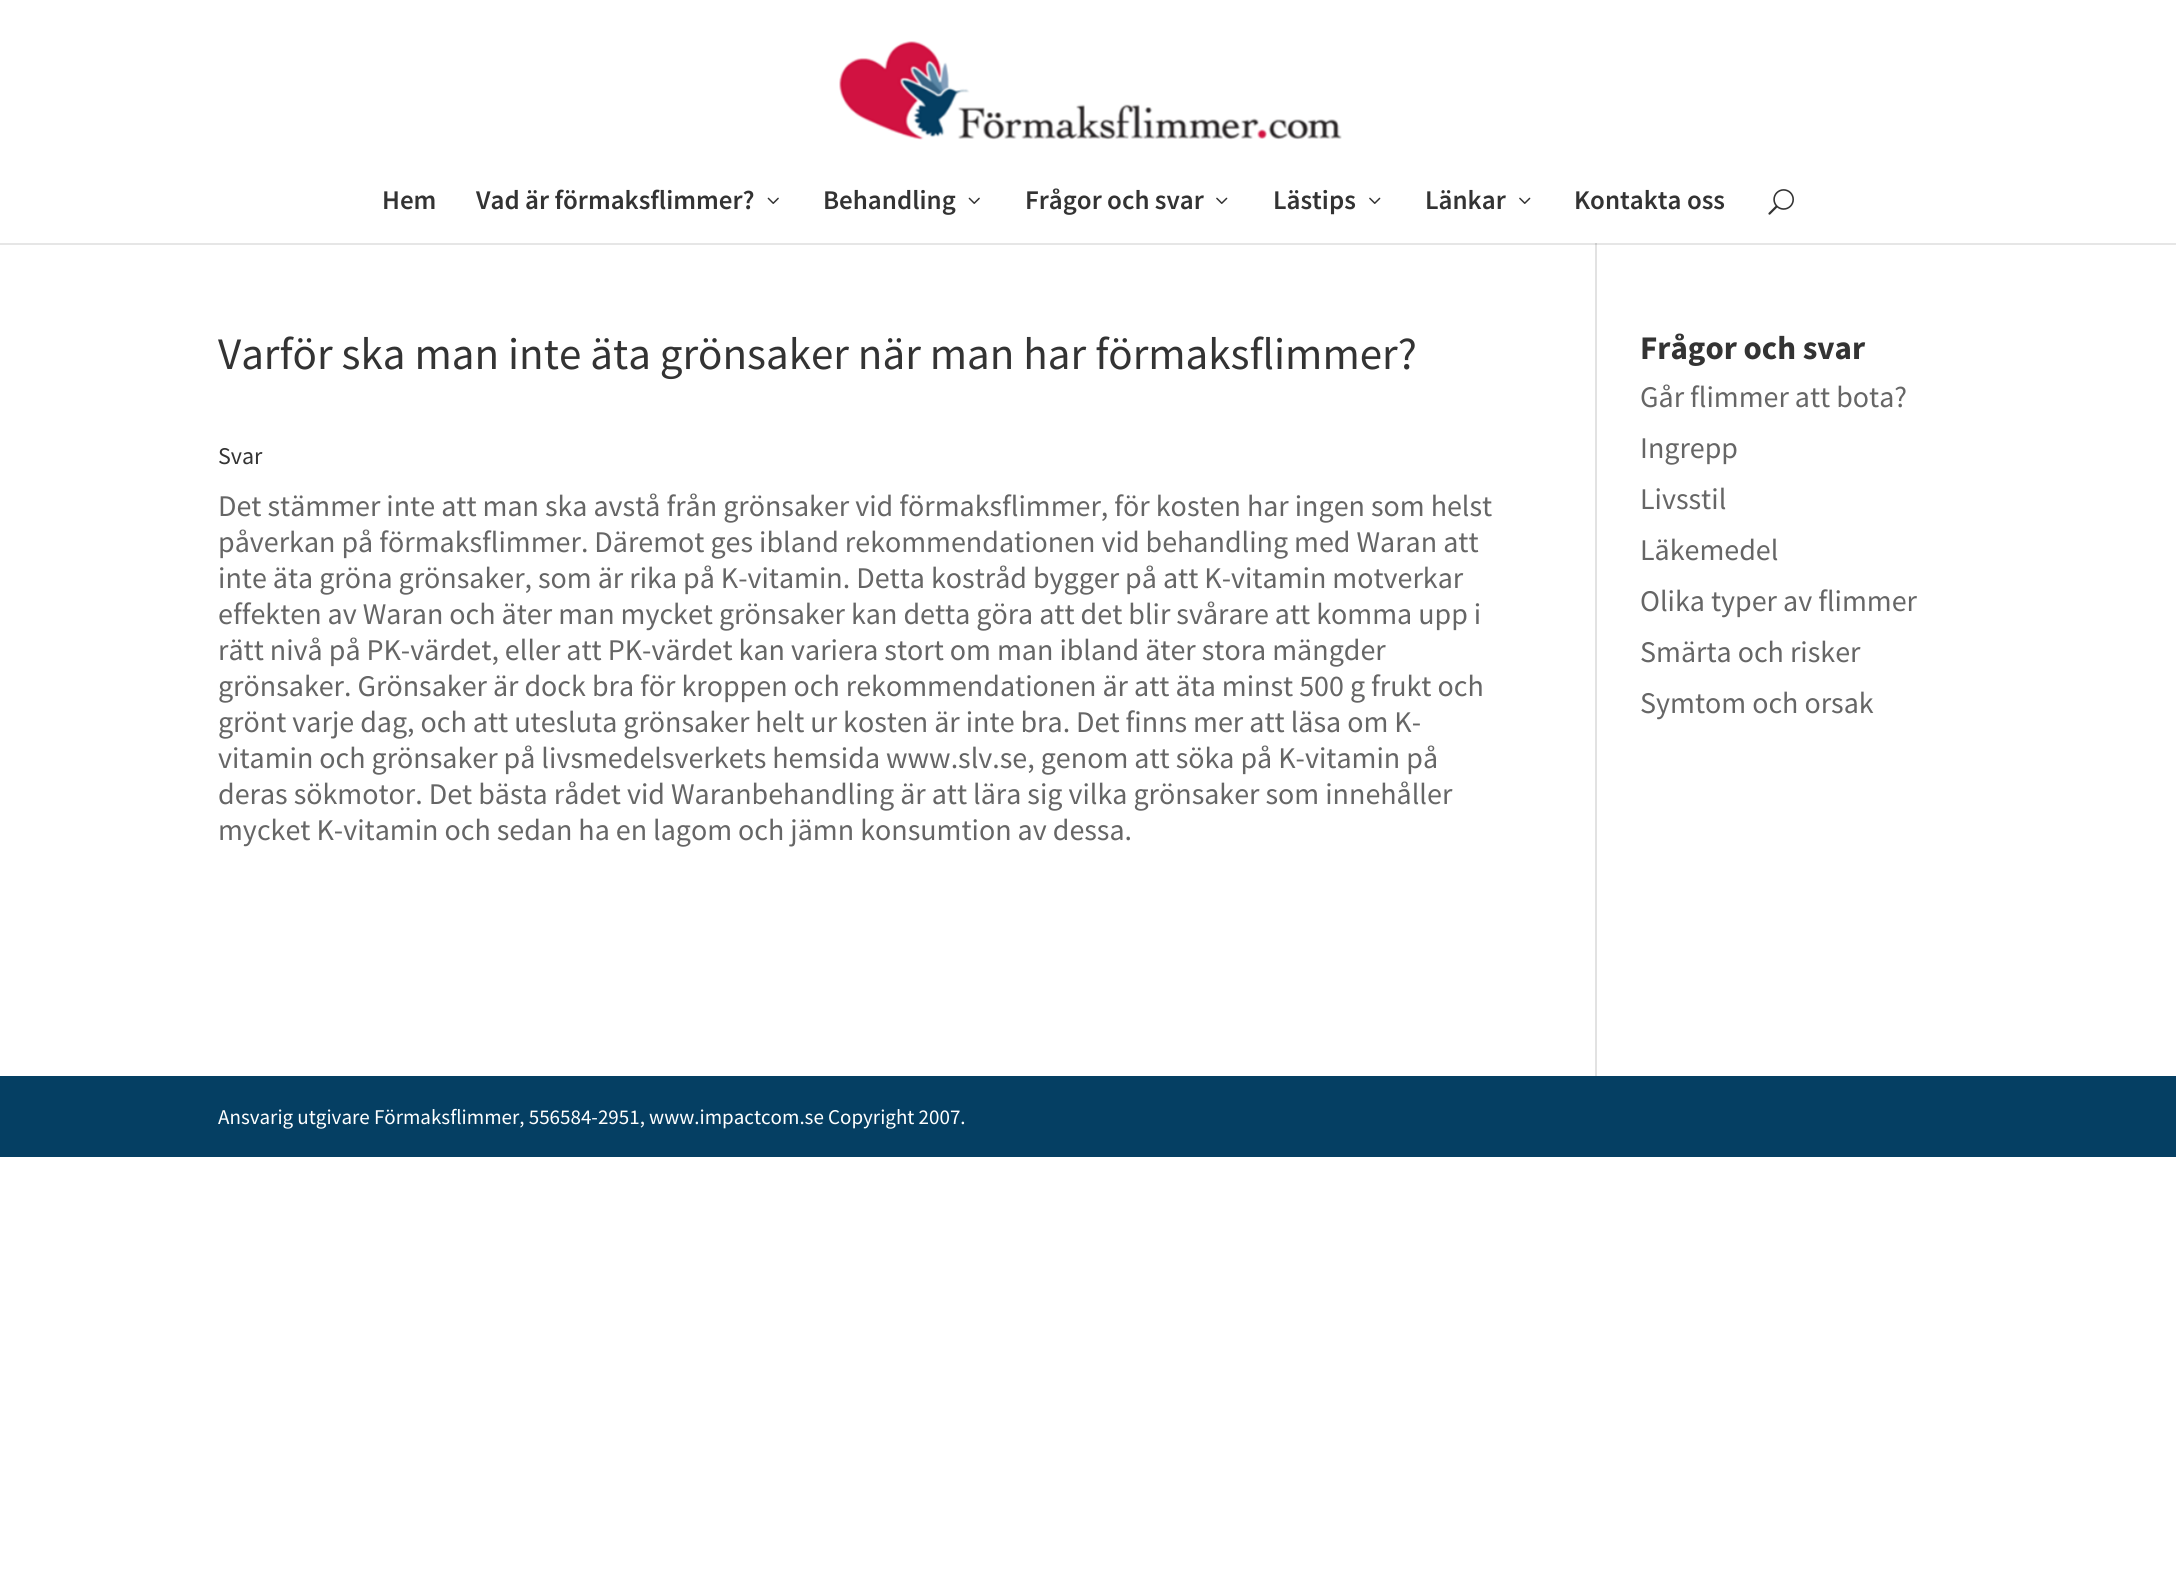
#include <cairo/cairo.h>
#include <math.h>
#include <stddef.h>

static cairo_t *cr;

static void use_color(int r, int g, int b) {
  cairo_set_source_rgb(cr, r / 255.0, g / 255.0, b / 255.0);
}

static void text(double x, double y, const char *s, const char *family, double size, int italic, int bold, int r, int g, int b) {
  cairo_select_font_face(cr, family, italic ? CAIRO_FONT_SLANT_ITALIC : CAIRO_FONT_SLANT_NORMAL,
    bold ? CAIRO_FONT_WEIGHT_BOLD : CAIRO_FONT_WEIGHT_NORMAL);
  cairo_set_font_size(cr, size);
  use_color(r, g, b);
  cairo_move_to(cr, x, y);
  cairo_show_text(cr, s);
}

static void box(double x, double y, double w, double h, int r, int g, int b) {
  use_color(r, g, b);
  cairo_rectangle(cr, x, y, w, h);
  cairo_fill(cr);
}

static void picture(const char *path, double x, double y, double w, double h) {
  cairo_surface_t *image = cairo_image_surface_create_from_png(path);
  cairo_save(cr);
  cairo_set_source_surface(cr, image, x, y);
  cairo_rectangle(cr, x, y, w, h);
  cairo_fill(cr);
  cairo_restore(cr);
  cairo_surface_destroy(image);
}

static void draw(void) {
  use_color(255, 255, 255);
  cairo_paint(cr);
  box(1595, 243, 2, 833, 226, 226, 226);
  cairo_set_source_rgba(cr, 0, 0, 0, 0.1);
  cairo_new_path(cr);
  cairo_move_to(cr, 0, 243);
  cairo_line_to(cr, 0, 245);
  cairo_line_to(cr, 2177, 245);
  cairo_line_to(cr, 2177, 2);
  cairo_line_to(cr, 2176, 2);
  cairo_line_to(cr, 2176, 243);
  cairo_close_path(cr);
  cairo_fill(cr);
  picture("img_01.png", 839, 41, 503, 99);
  picture("img_02.png", 767, 197, 12, 7);
  picture("img_02.png", 968, 197, 12, 7);
  picture("img_03.png", 1216, 197, 12, 7);
  picture("img_03.png", 1369, 197, 12, 7);
  picture("img_03.png", 1519, 197, 12, 7);
  picture("img_04.png", 1768, 189, 26, 26);
  box(0, 1076, 2176, 81, 5, 63, 99);
  text(382, 209, "Hem", "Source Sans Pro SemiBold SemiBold", 27, 0, 0, 51, 51, 51);
  text(476, 209, "Vad är förmaksflimmer?", "Source Sans Pro SemiBold SemiBold", 27, 0, 0, 51, 51, 51);
  text(823, 209, "Behandling", "Source Sans Pro SemiBold SemiBold", 27, 0, 0, 51, 51, 51);
  text(1025, 209, "Frågor och svar", "Source Sans Pro SemiBold SemiBold", 27, 0, 0, 51, 51, 51);
  text(1273, 209, "Lästips", "Source Sans Pro SemiBold SemiBold", 27, 0, 0, 51, 51, 51);
  text(1425, 209, "Länkar", "Source Sans Pro SemiBold SemiBold", 27, 0, 0, 51, 51, 51);
  text(1574, 209, "Kontakta oss", "Source Sans Pro SemiBold SemiBold", 27, 0, 0, 51, 51, 51);
  text(218, 369, "Varför ska man inte äta grönsaker när man har förmaksflimmer?", "Source Sans Pro", 45, 0, 0, 51, 51, 51);
  text(218, 464, "Svar", "Source Sans Pro", 24, 0, 0, 51, 51, 51);
  text(218, 516, "Det stämmer inte att man ska avstå från grönsaker vid förmaksflimmer, för kosten har ingen som helst", "Source Sans Pro", 30, 0, 0, 102, 102, 102);
  text(218, 552, "påverkan på förmaksflimmer. Däremot ges ibland rekommendationen vid behandling med Waran att", "Source Sans Pro", 30, 0, 0, 102, 102, 102);
  text(218, 588, "inte äta gröna grönsaker, som är rika på K-vitamin. Detta kostråd bygger på att K-vitamin motverkar", "Source Sans Pro", 30, 0, 0, 102, 102, 102);
  text(218, 624, "effekten av Waran och äter man mycket grönsaker kan detta göra att det blir svårare att komma upp i", "Source Sans Pro", 30, 0, 0, 102, 102, 102);
  text(218, 660, "rätt nivå på PK-värdet, eller att PK-värdet kan variera stort om man ibland äter stora mängder", "Source Sans Pro", 30, 0, 0, 102, 102, 102);
  text(218, 696, "grönsaker. Grönsaker är dock bra för kroppen och rekommendationen är att äta minst 500 g frukt och", "Source Sans Pro", 30, 0, 0, 102, 102, 102);
  text(218, 732, "grönt varje dag, och att utesluta grönsaker helt ur kosten är inte bra. Det finns mer att läsa om K-", "Source Sans Pro", 30, 0, 0, 102, 102, 102);
  text(218, 768, "vitamin och grönsaker på livsmedelsverkets hemsida www.slv.se, genom att söka på K-vitamin på", "Source Sans Pro", 30, 0, 0, 102, 102, 102);
  text(218, 804, "deras sökmotor. Det bästa rådet vid Waranbehandling är att lära sig vilka grönsaker som innehåller", "Source Sans Pro", 30, 0, 0, 102, 102, 102);
  text(218, 840, "mycket K-vitamin och sedan ha en lagom och jämn konsumtion av dessa.", "Source Sans Pro", 30, 0, 0, 102, 102, 102);
  text(1640, 359, "Frågor och svar", "Source Sans Pro", 33, 0, 1, 51, 51, 51);
  text(1640, 407, "Går flimmer att bota?", "Source Sans Pro", 30, 0, 0, 102, 102, 102);
  text(1640, 458, "Ingrepp", "Source Sans Pro", 30, 0, 0, 102, 102, 102);
  text(1640, 509, "Livsstil", "Source Sans Pro", 30, 0, 0, 102, 102, 102);
  text(1640, 560, "Läkemedel", "Source Sans Pro", 30, 0, 0, 102, 102, 102);
  text(1640, 611, "Olika typer av flimmer", "Source Sans Pro", 30, 0, 0, 102, 102, 102);
  text(1640, 662, "Smärta och risker", "Source Sans Pro", 30, 0, 0, 102, 102, 102);
  text(1640, 713, "Symtom och orsak", "Source Sans Pro", 30, 0, 0, 102, 102, 102);
  text(218, 1124, "Ansvarig utgivare Förmaksflimmer, 556584-2951, www.impactcom.se Copyright 2007.", "Source Sans Pro", 21, 0, 0, 255, 255, 255);
}

int main(void) {
  cairo_surface_t *surface = cairo_image_surface_create(CAIRO_FORMAT_RGB24, 2176, 1577);
  cr = cairo_create(surface);
  cairo_font_options_t *options = cairo_font_options_create();
  cairo_font_options_set_hint_metrics(options, CAIRO_HINT_METRICS_OFF);
  cairo_font_options_set_hint_style(options, CAIRO_HINT_STYLE_NONE);
  cairo_set_font_options(cr, options);
  cairo_set_miter_limit(cr, 4);
  draw();
  cairo_surface_write_to_png(surface, "out.png");
  cairo_font_options_destroy(options);
  cairo_destroy(cr);
  cairo_surface_destroy(surface);
  return 0;
}
